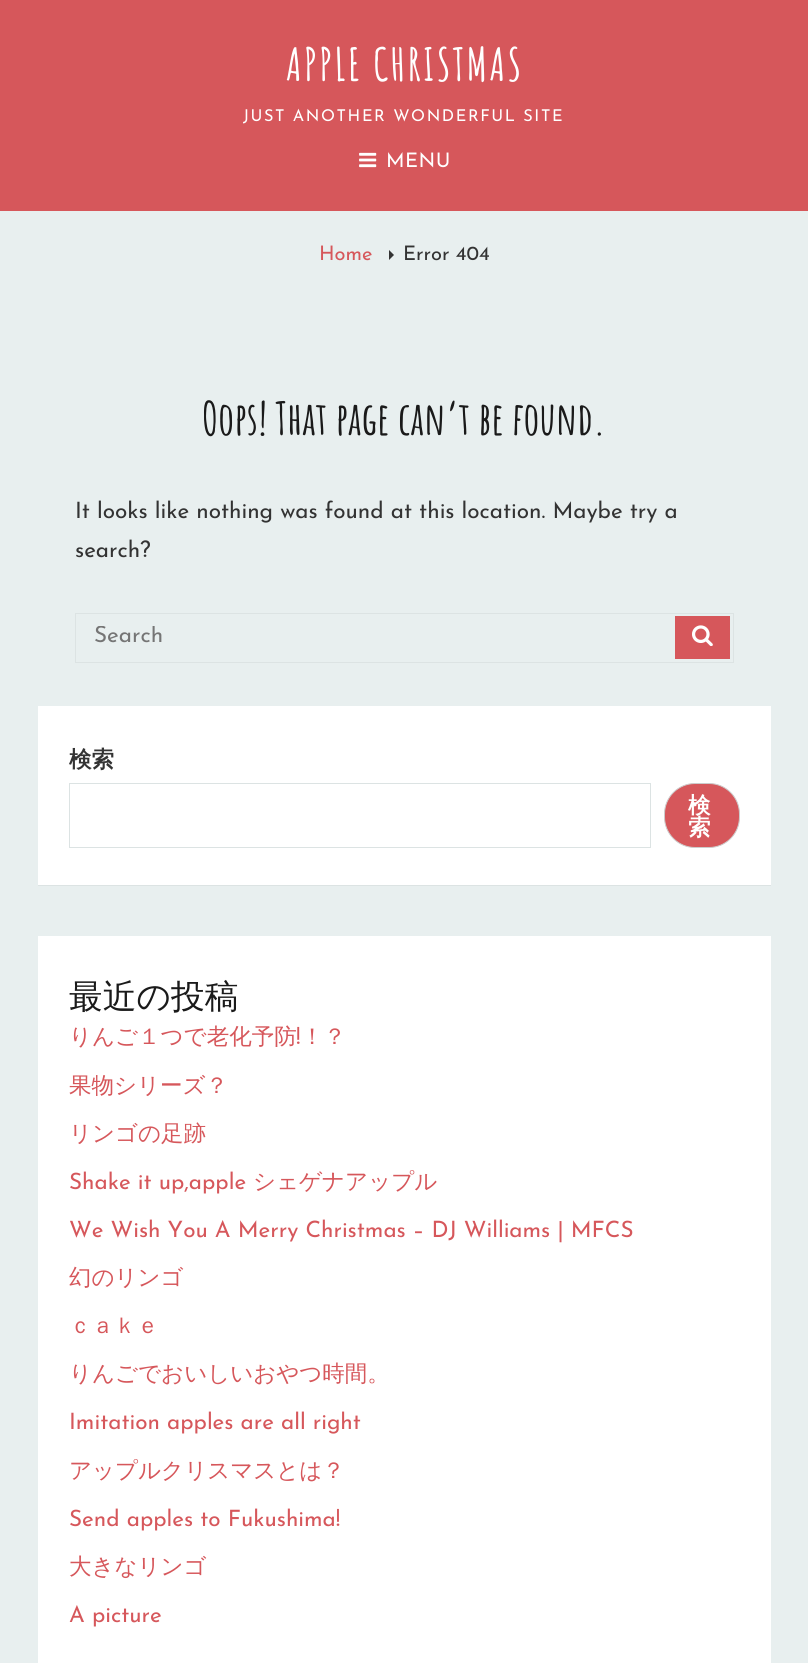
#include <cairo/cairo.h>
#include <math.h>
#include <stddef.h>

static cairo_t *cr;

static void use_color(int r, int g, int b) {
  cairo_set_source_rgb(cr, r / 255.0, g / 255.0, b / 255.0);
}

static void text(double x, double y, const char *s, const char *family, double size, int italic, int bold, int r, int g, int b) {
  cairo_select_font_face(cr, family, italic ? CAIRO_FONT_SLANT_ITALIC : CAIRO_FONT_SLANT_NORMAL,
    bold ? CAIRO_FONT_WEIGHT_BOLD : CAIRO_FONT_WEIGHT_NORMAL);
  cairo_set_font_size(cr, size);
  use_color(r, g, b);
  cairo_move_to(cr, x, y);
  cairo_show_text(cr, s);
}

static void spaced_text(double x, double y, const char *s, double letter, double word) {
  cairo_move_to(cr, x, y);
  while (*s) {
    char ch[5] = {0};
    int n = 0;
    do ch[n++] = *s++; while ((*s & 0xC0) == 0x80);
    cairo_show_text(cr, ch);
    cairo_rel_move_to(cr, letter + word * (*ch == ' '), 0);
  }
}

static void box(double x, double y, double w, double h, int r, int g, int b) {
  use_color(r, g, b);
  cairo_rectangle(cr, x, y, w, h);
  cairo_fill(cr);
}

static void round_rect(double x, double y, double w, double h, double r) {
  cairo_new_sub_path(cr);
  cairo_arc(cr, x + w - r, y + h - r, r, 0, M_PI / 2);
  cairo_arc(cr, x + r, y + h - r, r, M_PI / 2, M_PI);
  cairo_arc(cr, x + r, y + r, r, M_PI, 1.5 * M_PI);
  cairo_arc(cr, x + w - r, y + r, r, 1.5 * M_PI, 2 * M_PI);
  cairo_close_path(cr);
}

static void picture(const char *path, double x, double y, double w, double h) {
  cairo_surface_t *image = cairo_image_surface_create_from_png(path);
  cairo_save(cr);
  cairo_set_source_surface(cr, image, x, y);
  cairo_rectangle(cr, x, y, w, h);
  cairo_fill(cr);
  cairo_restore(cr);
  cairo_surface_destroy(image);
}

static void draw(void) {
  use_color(232, 239, 239);
  cairo_paint(cr);
  box(0, 0, 808, 211, 214, 87, 91);
  picture("img_01.png", 359, 152, 18, 16);
  use_color(51, 51, 51);
  cairo_new_path(cr);
  cairo_move_to(cr, 389, 260);
  cairo_line_to(cr, 389, 250);
  cairo_line_to(cr, 394, 255);
  cairo_close_path(cr);
  cairo_fill(cr);
  cairo_rectangle(cr, 75.5, 613.5, 658, 49);
  use_color(220, 227, 227);
  cairo_set_line_width(cr, 1);
  cairo_stroke(cr);
  box(675, 616, 55, 43, 214, 87, 91);
  picture("img_02.png", 692, 625, 21, 21);
  box(38, 706, 733, 179, 255, 255, 255);
  box(38, 885, 733, 1, 220, 227, 227);
  cairo_rectangle(cr, 69.5, 783.5, 581, 64);
  cairo_stroke(cr);
  use_color(214, 87, 91);
  round_rect(664.5, 783.5, 75, 64, 30.5);
  cairo_fill_preserve(cr);
  use_color(204, 204, 204);
  cairo_stroke(cr);
  box(38, 936, 733, 727, 255, 255, 255);
  cairo_select_font_face(cr, "Amatic SC", CAIRO_FONT_SLANT_NORMAL, CAIRO_FONT_WEIGHT_BOLD);
  cairo_set_font_size(cr, 45);
  spaced_text(286, 81, "APPLE CHRISTMAS", 2.25, 0);
  cairo_select_font_face(cr, "Josefin Sans", CAIRO_FONT_SLANT_NORMAL, CAIRO_FONT_WEIGHT_NORMAL);
  cairo_set_font_size(cr, 16.25);
  spaced_text(243, 121, "JUST ANOTHER WONDERFUL SITE", 1.6, 0);
  cairo_set_font_size(cr, 20);
  spaced_text(386, 167, "MENU", 0.5, 0);
  text(319, 260, "Home", "Josefin Sans", 20, 0, 0, 214, 87, 91);
  text(403, 260, "Error 404", "Josefin Sans", 20, 0, 0, 51, 51, 51);
  text(202, 435, "Oops! That page can’t be found.", "Amatic SC", 45, 0, 1, 26, 26, 26);
  text(75, 518, "It looks like nothing was found at this location. Maybe try a", "Josefin Sans", 22.5, 0, 0, 51, 51, 51);
  text(75, 557, "search?", "Josefin Sans", 22.5, 0, 0, 51, 51, 51);
  cairo_save(cr);
  cairo_rectangle(cr, 94, 626, 577, 23);
  cairo_clip(cr);
  text(94, 642, "Search", "Josefin Sans", 22.5, 0, 0, 117, 117, 117);
  cairo_restore(cr);
  text(69, 767, "検索", "WenQuanYi Zen Hei", 22.5, 0, 1, 51, 51, 51);
  use_color(255, 255, 255);
  spaced_text(688, 813, "検", 4, 0);
  spaced_text(688, 835, "索", 4, 0);
  text(69, 1008, "最近の投稿", "WenQuanYi Zen Hei Medium", 33.75, 0, 0, 26, 26, 26);
  text(69, 1044, "りんご１つで老化予防", "WenQuanYi Zen Hei Medium", 22.5, 0, 0, 214, 87, 91);
  text(296, 1044, "!", "Josefin Sans", 22.5, 0, 0, 214, 87, 91);
  text(301, 1044, "！？", "WenQuanYi Zen Hei Medium", 22.5, 0, 0, 214, 87, 91);
  text(69, 1093, "果物シリーズ？", "WenQuanYi Zen Hei Medium", 22.5, 0, 0, 214, 87, 91);
  text(69, 1141, "リンゴの足跡", "WenQuanYi Zen Hei Medium", 22.5, 0, 0, 214, 87, 91);
  text(69, 1189, "Shake it up,apple", "Josefin Sans", 22.5, 0, 0, 214, 87, 91);
  text(253, 1189, "シェゲナアップル", "WenQuanYi Zen Hei Medium", 22.5, 0, 0, 214, 87, 91);
  text(69, 1237, "We Wish You A Merry Christmas – DJ Williams | MFCS", "Josefin Sans", 22.5, 0, 0, 214, 87, 91);
  text(69, 1285, "幻のリンゴ", "WenQuanYi Zen Hei Medium", 22.5, 0, 0, 214, 87, 91);
  text(69, 1333, "ｃａｋｅ", "WenQuanYi Zen Hei Medium", 22.5, 0, 0, 214, 87, 91);
  text(69, 1381, "りんごでおいしいおやつ時間。", "WenQuanYi Zen Hei Medium", 22.5, 0, 0, 214, 87, 91);
  text(69, 1429, "Imitation apples are all right", "Josefin Sans", 22.5, 0, 0, 214, 87, 91);
  text(69, 1478, "アップルクリスマスとは？", "WenQuanYi Zen Hei Medium", 22.5, 0, 0, 214, 87, 91);
  text(69, 1526, "Send apples to Fukushima!", "Josefin Sans", 22.5, 0, 0, 214, 87, 91);
  text(69, 1574, "大きなリンゴ", "WenQuanYi Zen Hei Medium", 22.5, 0, 0, 214, 87, 91);
  text(69, 1622, "A picture", "Josefin Sans", 22.5, 0, 0, 214, 87, 91);
}

int main(void) {
  cairo_surface_t *surface = cairo_image_surface_create(CAIRO_FORMAT_RGB24, 808, 1663);
  cr = cairo_create(surface);
  cairo_font_options_t *options = cairo_font_options_create();
  cairo_font_options_set_hint_metrics(options, CAIRO_HINT_METRICS_OFF);
  cairo_font_options_set_hint_style(options, CAIRO_HINT_STYLE_NONE);
  cairo_set_font_options(cr, options);
  cairo_set_miter_limit(cr, 4);
  draw();
  cairo_surface_write_to_png(surface, "out.png");
  cairo_font_options_destroy(options);
  cairo_destroy(cr);
  cairo_surface_destroy(surface);
  return 0;
}
